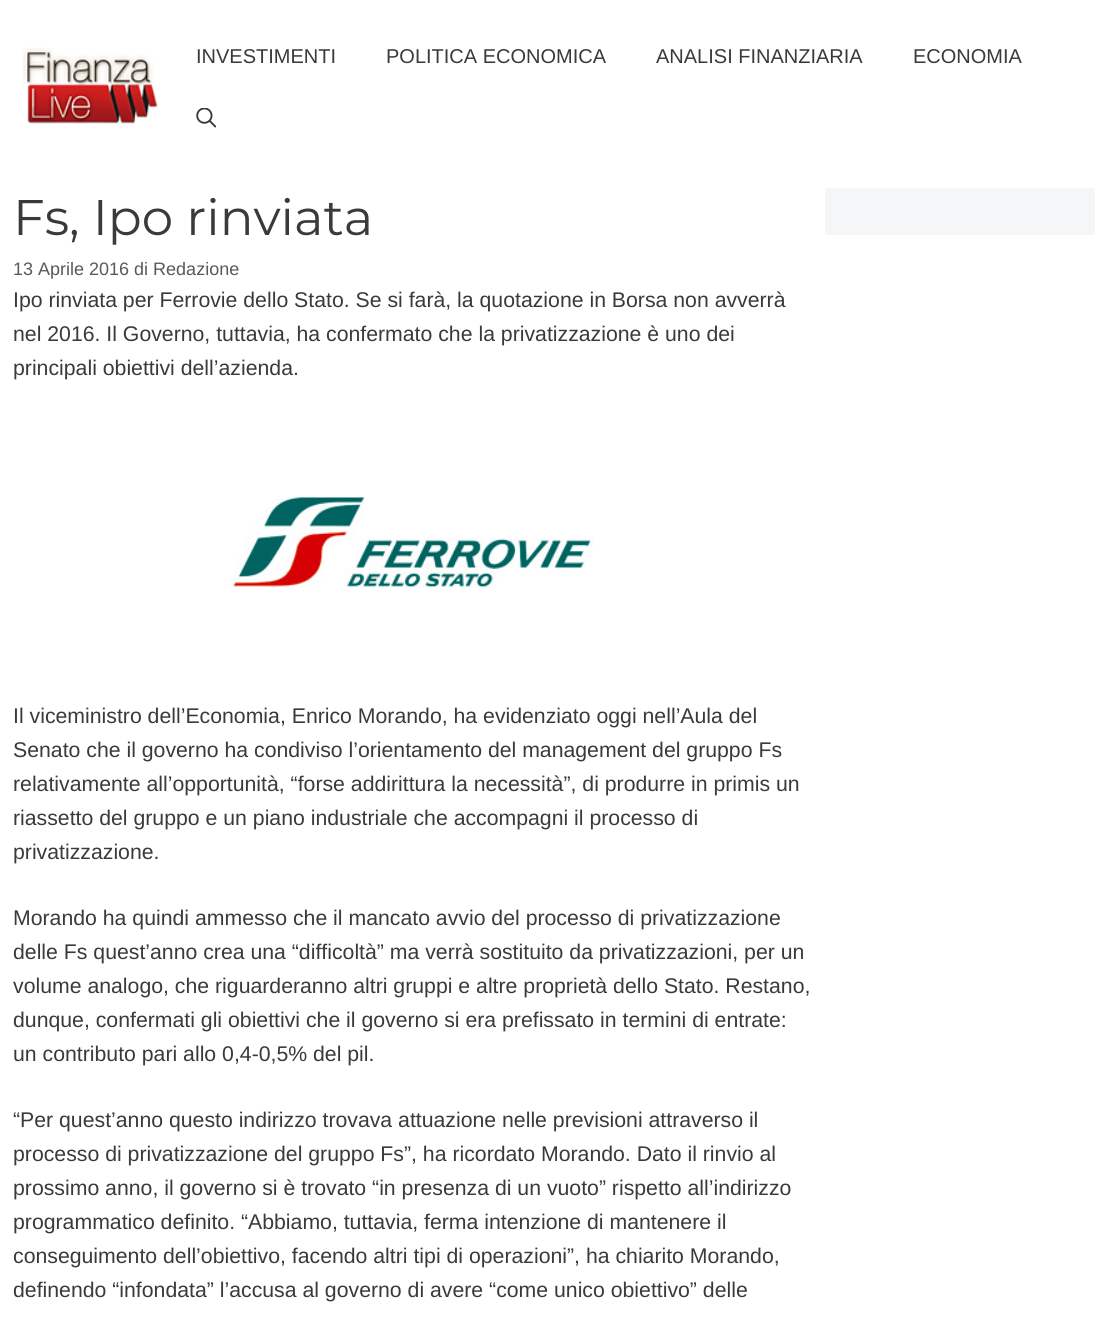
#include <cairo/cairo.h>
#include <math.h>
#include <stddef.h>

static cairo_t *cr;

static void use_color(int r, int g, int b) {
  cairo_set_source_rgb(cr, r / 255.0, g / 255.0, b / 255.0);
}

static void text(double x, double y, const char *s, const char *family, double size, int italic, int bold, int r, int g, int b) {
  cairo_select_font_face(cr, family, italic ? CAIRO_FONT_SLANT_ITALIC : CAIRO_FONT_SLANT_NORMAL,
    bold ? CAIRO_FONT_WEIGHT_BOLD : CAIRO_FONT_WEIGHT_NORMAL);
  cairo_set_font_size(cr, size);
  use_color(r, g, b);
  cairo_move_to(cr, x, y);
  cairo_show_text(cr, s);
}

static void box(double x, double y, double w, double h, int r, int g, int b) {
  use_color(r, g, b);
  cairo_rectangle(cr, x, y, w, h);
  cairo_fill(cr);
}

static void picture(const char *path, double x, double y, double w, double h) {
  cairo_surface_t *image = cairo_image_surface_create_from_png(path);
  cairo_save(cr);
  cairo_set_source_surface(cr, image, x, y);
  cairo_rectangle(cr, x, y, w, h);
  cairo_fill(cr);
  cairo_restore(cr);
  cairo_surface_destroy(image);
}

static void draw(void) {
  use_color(255, 255, 255);
  cairo_paint(cr);
  picture("img_01.png", 22, 47, 136, 77);
  picture("img_02.png", 196, 108, 20, 20);
  picture("img_03.png", 225, 497, 369, 91);
  box(825, 188, 270, 47, 244, 246, 247);
  text(196, 63, "INVESTIMENTI", "Liberation Sans", 20, 0, 0, 58, 58, 58);
  text(386, 63, "POLITICA ECONOMICA", "Liberation Sans", 20, 0, 0, 58, 58, 58);
  text(656, 63, "ANALISI FINANZIARIA", "Liberation Sans", 20, 0, 0, 58, 58, 58);
  text(913, 63, "ECONOMIA", "Liberation Sans", 20, 0, 0, 58, 58, 58);
  text(13, 235, "Fs, Ipo rinviata", "Montserrat", 50, 0, 0, 58, 58, 58);
  text(13, 275, "13 Aprile 2016 di Redazione", "Liberation Sans", 18, 0, 0, 89, 89, 89);
  text(13, 307, "Ipo rinviata per Ferrovie dello Stato. Se si farà, la quotazione in Borsa non avverrà", "Liberation Sans", 21.25, 0, 0, 58, 58, 58);
  text(13, 341, "nel 2016. Il Governo, tuttavia, ha confermato che la privatizzazione è uno dei", "Liberation Sans", 21.25, 0, 0, 58, 58, 58);
  text(13, 375, "principali obiettivi dell’azienda.", "Liberation Sans", 21.25, 0, 0, 58, 58, 58);
  text(13, 723, "Il viceministro dell’Economia, Enrico Morando, ha evidenziato oggi nell’Aula del", "Liberation Sans", 21.25, 0, 0, 58, 58, 58);
  text(13, 757, "Senato che il governo ha condiviso l’orientamento del management del gruppo Fs", "Liberation Sans", 21.25, 0, 0, 58, 58, 58);
  text(13, 791, "relativamente all’opportunità, “forse addirittura la necessità”, di produrre in primis un", "Liberation Sans", 21.25, 0, 0, 58, 58, 58);
  text(13, 825, "riassetto del gruppo e un piano industriale che accompagni il processo di", "Liberation Sans", 21.25, 0, 0, 58, 58, 58);
  text(13, 859, "privatizzazione.", "Liberation Sans", 21.25, 0, 0, 58, 58, 58);
  text(13, 925, "Morando ha quindi ammesso che il mancato avvio del processo di privatizzazione", "Liberation Sans", 21.25, 0, 0, 58, 58, 58);
  text(13, 959, "delle Fs quest’anno crea una “difficoltà” ma verrà sostituito da privatizzazioni, per un", "Liberation Sans", 21.25, 0, 0, 58, 58, 58);
  text(13, 993, "volume analogo, che riguarderanno altri gruppi e altre proprietà dello Stato. Restano,", "Liberation Sans", 21.25, 0, 0, 58, 58, 58);
  text(13, 1027, "dunque, confermati gli obiettivi che il governo si era prefissato in termini di entrate:", "Liberation Sans", 21.25, 0, 0, 58, 58, 58);
  text(13, 1061, "un contributo pari allo 0,4-0,5% del pil.", "Liberation Sans", 21.25, 0, 0, 58, 58, 58);
  text(13, 1127, "“Per quest’anno questo indirizzo trovava attuazione nelle previsioni attraverso il", "Liberation Sans", 21.25, 0, 0, 58, 58, 58);
  text(13, 1161, "processo di privatizzazione del gruppo Fs”, ha ricordato Morando. Dato il rinvio al", "Liberation Sans", 21.25, 0, 0, 58, 58, 58);
  text(13, 1195, "prossimo anno, il governo si è trovato “in presenza di un vuoto” rispetto all’indirizzo", "Liberation Sans", 21.25, 0, 0, 58, 58, 58);
  text(13, 1229, "programmatico definito. “Abbiamo, tuttavia, ferma intenzione di mantenere il", "Liberation Sans", 21.25, 0, 0, 58, 58, 58);
  text(13, 1263, "conseguimento dell’obiettivo, facendo altri tipi di operazioni”, ha chiarito Morando,", "Liberation Sans", 21.25, 0, 0, 58, 58, 58);
  text(13, 1297, "definendo “infondata” l’accusa al governo di avere “come unico obiettivo” delle", "Liberation Sans", 21.25, 0, 0, 58, 58, 58);
}

int main(void) {
  cairo_surface_t *surface = cairo_image_surface_create(CAIRO_FORMAT_RGB24, 1107, 1318);
  cr = cairo_create(surface);
  cairo_font_options_t *options = cairo_font_options_create();
  cairo_font_options_set_hint_metrics(options, CAIRO_HINT_METRICS_OFF);
  cairo_font_options_set_hint_style(options, CAIRO_HINT_STYLE_NONE);
  cairo_set_font_options(cr, options);
  cairo_set_miter_limit(cr, 4);
  draw();
  cairo_surface_write_to_png(surface, "out.png");
  cairo_font_options_destroy(options);
  cairo_destroy(cr);
  cairo_surface_destroy(surface);
  return 0;
}
